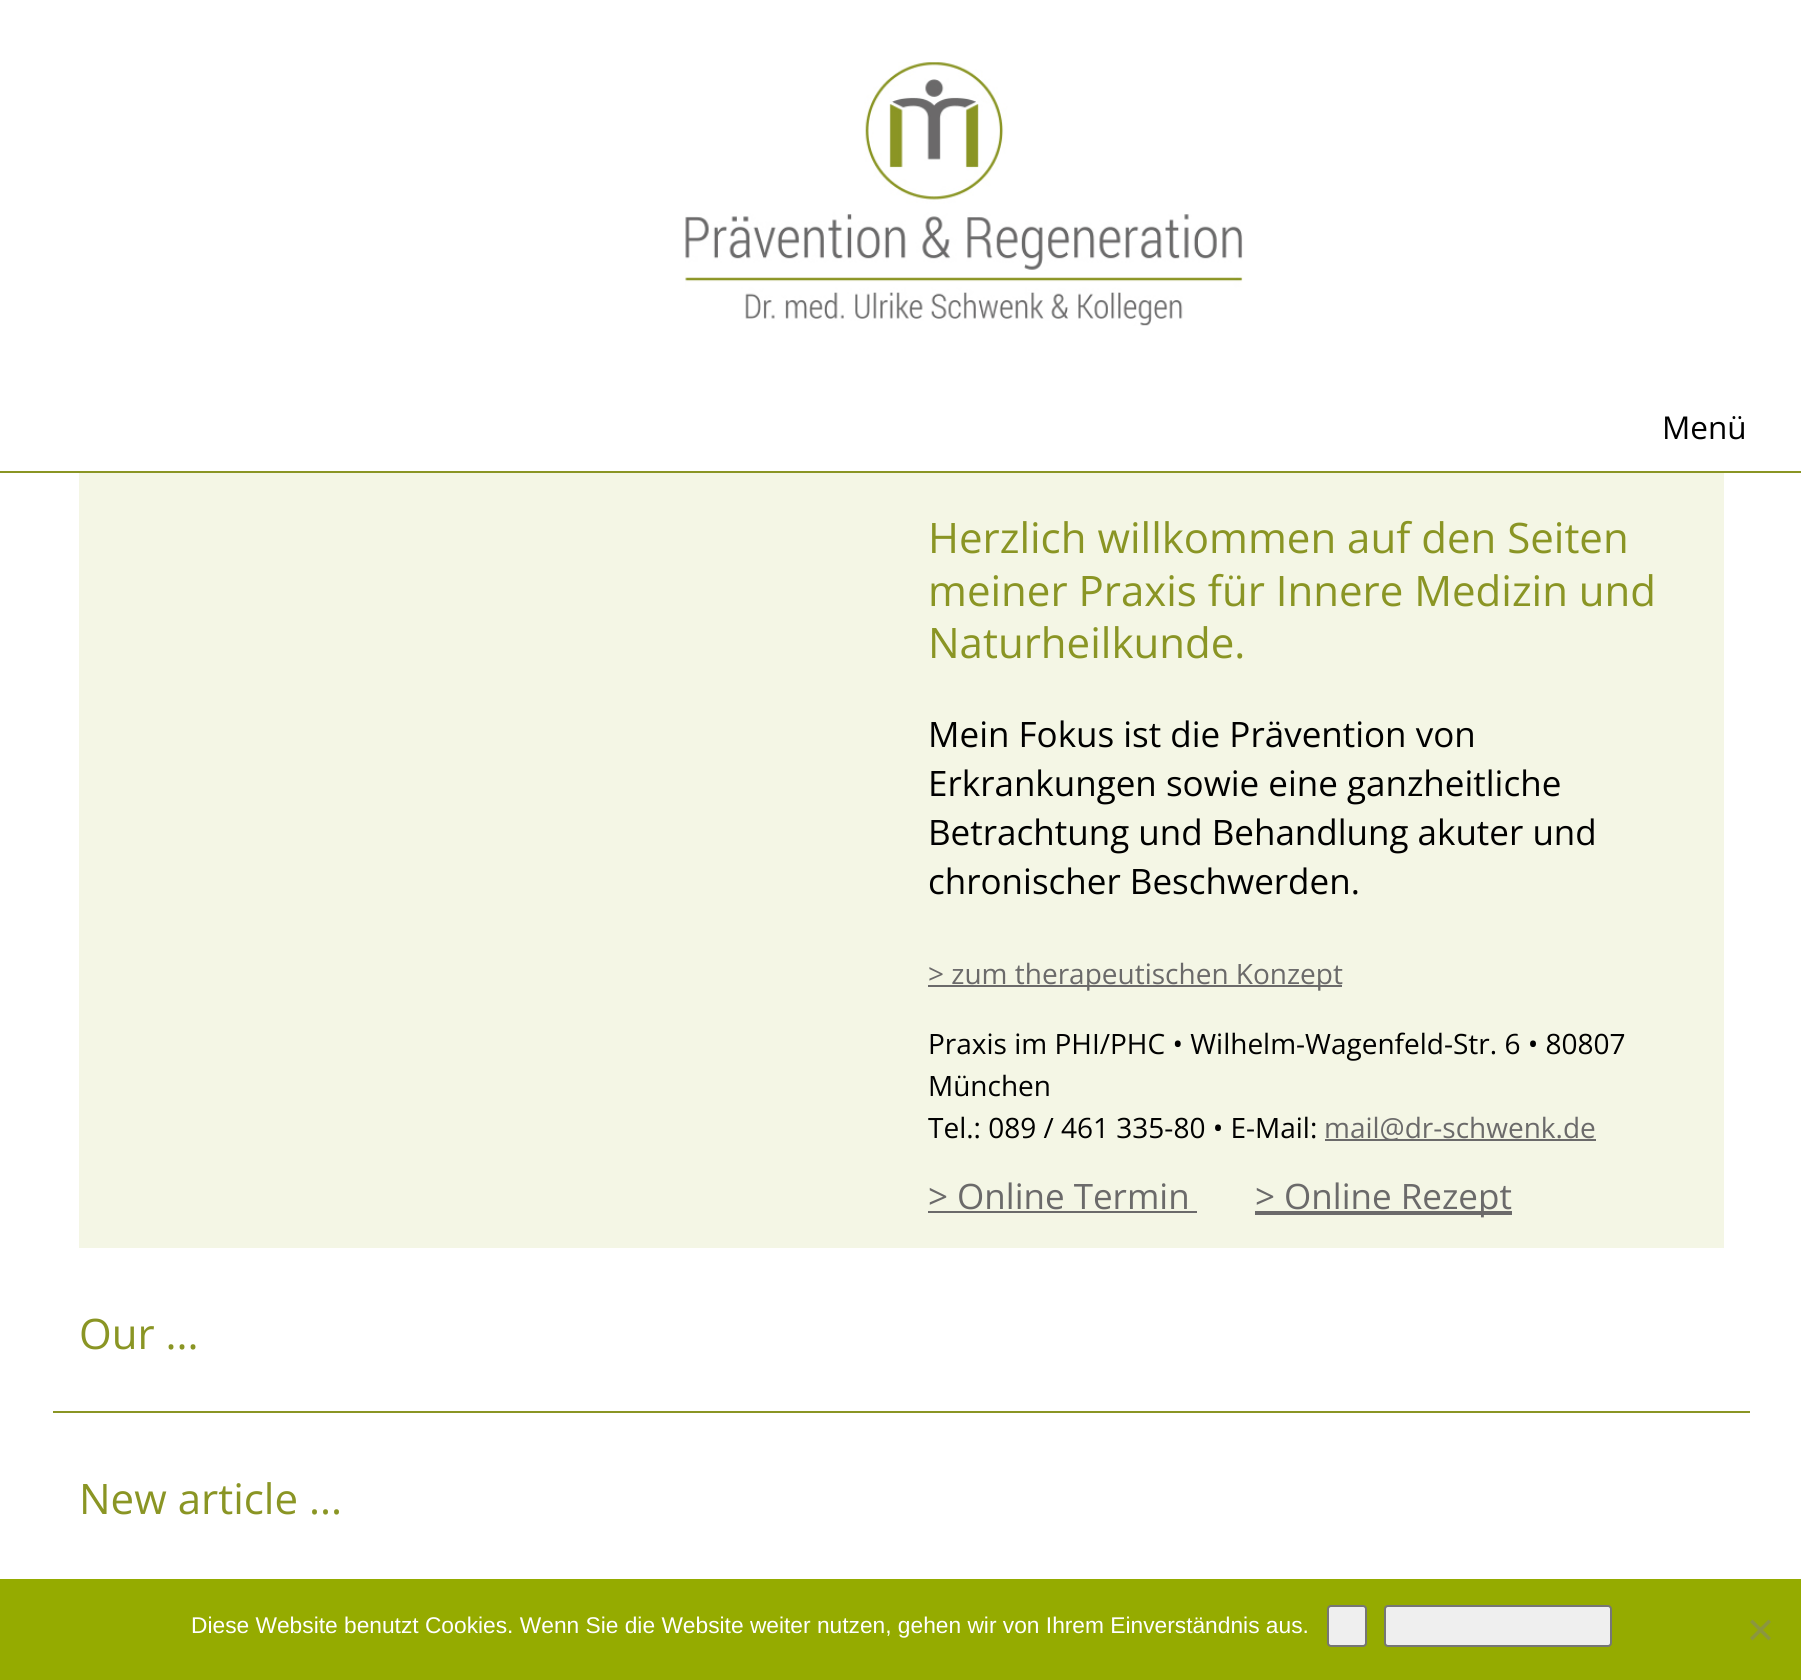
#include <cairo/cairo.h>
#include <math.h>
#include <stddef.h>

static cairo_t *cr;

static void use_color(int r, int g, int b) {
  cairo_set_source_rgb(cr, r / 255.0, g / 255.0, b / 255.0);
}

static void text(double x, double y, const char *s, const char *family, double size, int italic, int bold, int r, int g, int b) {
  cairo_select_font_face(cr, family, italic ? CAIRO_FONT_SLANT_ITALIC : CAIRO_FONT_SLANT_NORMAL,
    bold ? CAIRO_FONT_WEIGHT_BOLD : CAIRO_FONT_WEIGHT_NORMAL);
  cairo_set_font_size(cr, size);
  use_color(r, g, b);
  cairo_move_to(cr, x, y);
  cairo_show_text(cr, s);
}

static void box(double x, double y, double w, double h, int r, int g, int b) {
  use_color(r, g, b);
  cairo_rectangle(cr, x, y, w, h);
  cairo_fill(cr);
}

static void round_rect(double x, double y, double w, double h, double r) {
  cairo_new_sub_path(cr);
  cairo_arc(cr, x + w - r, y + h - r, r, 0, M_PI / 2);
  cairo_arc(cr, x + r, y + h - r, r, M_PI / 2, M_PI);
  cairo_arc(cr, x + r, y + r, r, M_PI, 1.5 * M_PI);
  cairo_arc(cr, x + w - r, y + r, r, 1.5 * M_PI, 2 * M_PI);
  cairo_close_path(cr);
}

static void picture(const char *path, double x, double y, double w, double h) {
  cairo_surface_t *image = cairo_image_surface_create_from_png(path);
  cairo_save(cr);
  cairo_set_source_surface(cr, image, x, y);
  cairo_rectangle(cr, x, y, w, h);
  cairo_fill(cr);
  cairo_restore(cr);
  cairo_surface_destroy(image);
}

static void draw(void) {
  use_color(255, 255, 255);
  cairo_paint(cr);
  picture("img_01.png", 685, 62, 558, 264);
  box(0, 471, 1801, 2, 138, 149, 36);
  box(79, 473, 1645, 775, 244, 246, 229);
  box(928, 985, 414, 2, 107, 106, 106);
  box(1325, 1139, 271, 2, 107, 106, 106);
  box(928, 1211, 269, 2, 107, 106, 106);
  box(1255, 1211, 257, 4, 107, 106, 106);
  box(53, 1411, 1697, 2, 138, 149, 36);
  box(0, 1579, 1801, 101, 149, 171, 0);
  use_color(239, 239, 239);
  round_rect(1328, 1606, 38, 40, 3);
  cairo_fill_preserve(cr);
  use_color(118, 118, 118);
  cairo_stroke(cr);
  use_color(239, 239, 239);
  round_rect(1385, 1606, 226, 40, 3);
  cairo_fill_preserve(cr);
  use_color(118, 118, 118);
  cairo_stroke(cr);
  use_color(139, 150, 64);
  cairo_new_path(cr);
  cairo_move_to(cr, 1768.5, 1619.5);
  cairo_line_to(cr, 1771, 1622);
  cairo_line_to(cr, 1752.5, 1640.5);
  cairo_line_to(cr, 1750, 1638);
  cairo_close_path(cr);
  cairo_fill(cr);
  cairo_new_path(cr);
  cairo_move_to(cr, 1750, 1622);
  cairo_line_to(cr, 1752.5, 1619.5);
  cairo_line_to(cr, 1771, 1638);
  cairo_line_to(cr, 1768.5, 1640.5);
  cairo_close_path(cr);
  cairo_fill(cr);
  text(1662, 439, "Menü", "Open Sans", 31.5, 0, 0, 0, 0, 0);
  text(928, 553, "Herzlich willkommen auf den Seiten", "Open Sans", 42, 0, 0, 138, 149, 36);
  text(928, 606, "meiner Praxis für Innere Medizin und", "Open Sans", 42, 0, 0, 138, 149, 36);
  text(928, 658, "Naturheilkunde.", "Open Sans", 42, 0, 0, 138, 149, 36);
  text(928, 747, "Mein Fokus ist die Prävention von", "Open Sans", 35, 0, 0, 0, 0, 0);
  text(928, 796, "Erkrankungen sowie eine ganzheitliche", "Open Sans", 35, 0, 0, 0, 0, 0);
  text(928, 845, "Betrachtung und Behandlung akuter und", "Open Sans", 35, 0, 0, 0, 0, 0);
  text(928, 894, "chronischer Beschwerden.", "Open Sans", 35, 0, 0, 0, 0, 0);
  text(928, 984, "> zum therapeutischen Konzept", "Open Sans", 28, 0, 0, 107, 106, 106);
  text(928, 1054, "Praxis im PHI/PHC • Wilhelm-Wagenfeld-Str. 6 • 80807", "Open Sans", 28, 0, 0, 0, 0, 0);
  text(928, 1096, "München", "Open Sans", 28, 0, 0, 0, 0, 0);
  text(928, 1138, "Tel.: 089 / 461 335-80 • E-Mail:", "Open Sans", 28, 0, 0, 0, 0, 0);
  text(1324, 1138, "mail@dr-schwenk.de", "Open Sans", 28, 0, 0, 107, 106, 106);
  text(928, 1209, "> Online Termin", "Open Sans", 35, 0, 0, 107, 106, 106);
  text(1255, 1209, "> Online Rezept", "Open Sans", 35, 0, 0, 107, 106, 106);
  text(79, 1349, "Our ...", "Open Sans", 42, 0, 0, 138, 149, 36);
  text(79, 1514, "New article ...", "Open Sans", 42, 0, 0, 138, 149, 36);
  text(191, 1633, "Diese Website benutzt Cookies. Wenn Sie die Website weiter nutzen, gehen wir von Ihrem Einverständnis aus.", "Liberation Sans", 22.75, 0, 0, 255, 255, 255);
}

int main(void) {
  cairo_surface_t *surface = cairo_image_surface_create(CAIRO_FORMAT_RGB24, 1801, 1680);
  cr = cairo_create(surface);
  cairo_font_options_t *options = cairo_font_options_create();
  cairo_font_options_set_hint_metrics(options, CAIRO_HINT_METRICS_OFF);
  cairo_font_options_set_hint_style(options, CAIRO_HINT_STYLE_NONE);
  cairo_set_font_options(cr, options);
  cairo_set_miter_limit(cr, 4);
  draw();
  cairo_surface_write_to_png(surface, "out.png");
  cairo_font_options_destroy(options);
  cairo_destroy(cr);
  cairo_surface_destroy(surface);
  return 0;
}
